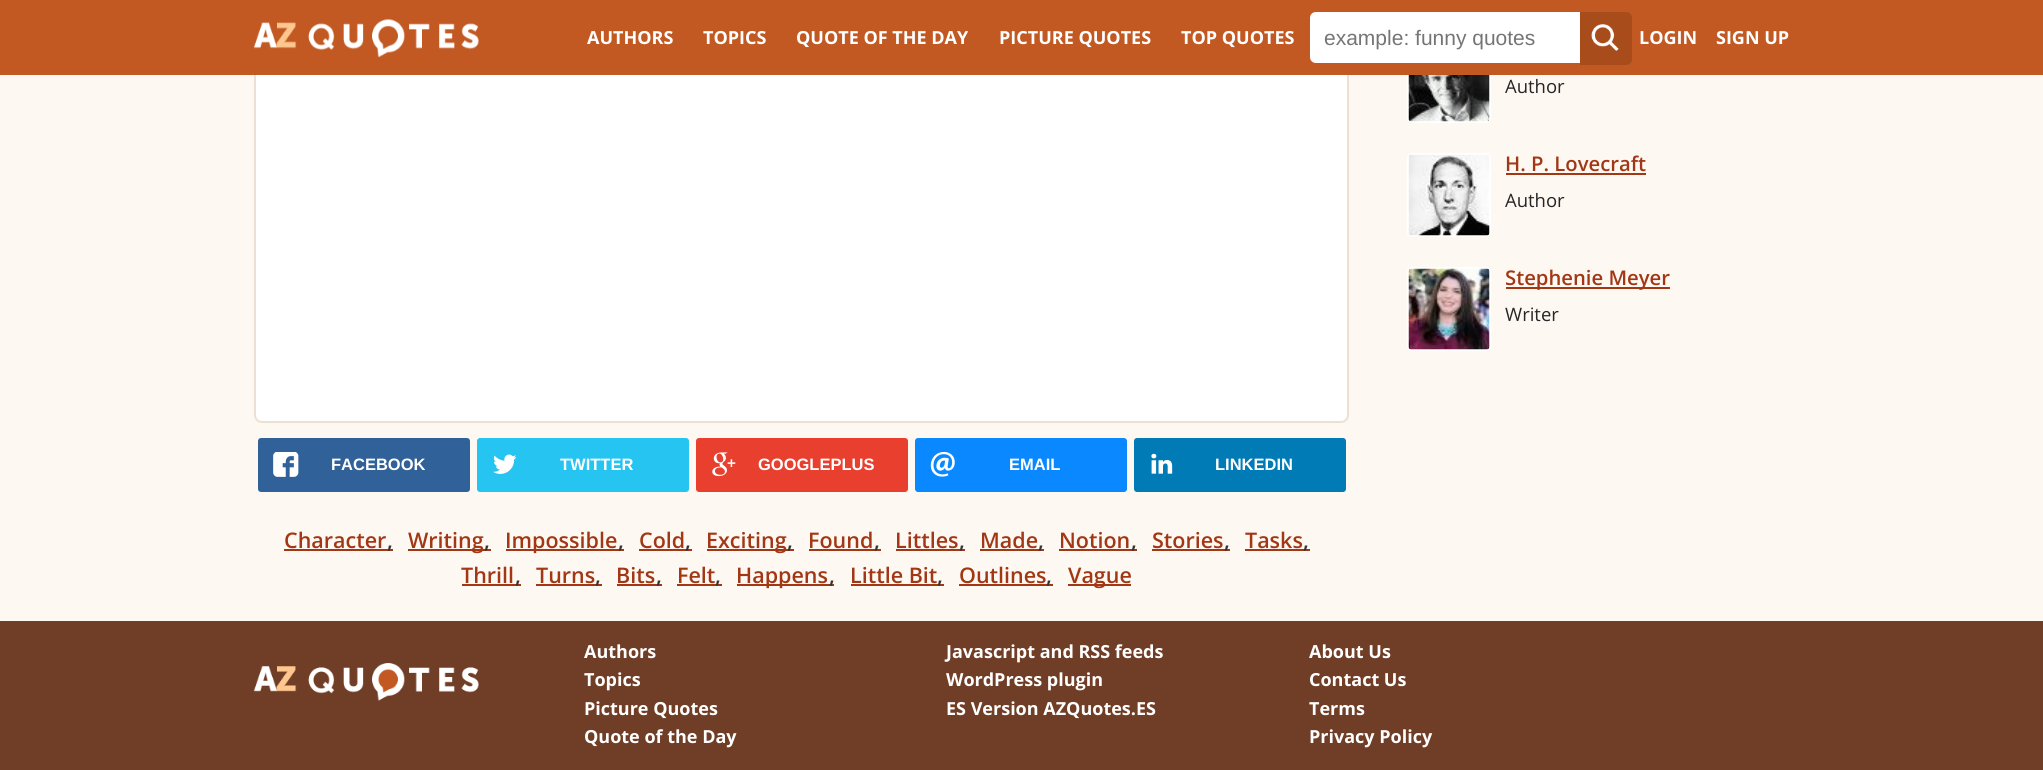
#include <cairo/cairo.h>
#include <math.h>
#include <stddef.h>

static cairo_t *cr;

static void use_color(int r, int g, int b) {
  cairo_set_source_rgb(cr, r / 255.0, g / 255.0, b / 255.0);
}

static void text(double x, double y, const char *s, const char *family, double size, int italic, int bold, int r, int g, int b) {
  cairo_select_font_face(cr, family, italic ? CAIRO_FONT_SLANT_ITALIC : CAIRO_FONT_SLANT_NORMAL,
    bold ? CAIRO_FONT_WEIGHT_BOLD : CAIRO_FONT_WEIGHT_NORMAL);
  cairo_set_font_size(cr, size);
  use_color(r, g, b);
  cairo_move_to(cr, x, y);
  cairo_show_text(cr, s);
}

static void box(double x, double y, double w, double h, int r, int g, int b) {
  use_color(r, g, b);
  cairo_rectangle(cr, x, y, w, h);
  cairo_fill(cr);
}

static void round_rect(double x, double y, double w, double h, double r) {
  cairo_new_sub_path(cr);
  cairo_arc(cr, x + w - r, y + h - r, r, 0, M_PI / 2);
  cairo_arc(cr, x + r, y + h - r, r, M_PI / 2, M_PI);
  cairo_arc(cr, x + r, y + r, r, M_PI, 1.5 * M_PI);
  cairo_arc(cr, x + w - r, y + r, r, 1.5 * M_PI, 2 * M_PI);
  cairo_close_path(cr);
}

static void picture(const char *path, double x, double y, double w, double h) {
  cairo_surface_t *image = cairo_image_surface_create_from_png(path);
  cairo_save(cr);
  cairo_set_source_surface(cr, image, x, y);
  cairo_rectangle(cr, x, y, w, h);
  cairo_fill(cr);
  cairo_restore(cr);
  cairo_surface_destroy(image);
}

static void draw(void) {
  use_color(112, 61, 38);
  cairo_paint(cr);
  box(0, 75, 2043, 546, 254, 248, 242);
  round_rect(1408, 40, 82, 82, 4);
  use_color(255, 255, 255);
  cairo_stroke(cr);
  round_rect(255, -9, 1093, 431, 7);
  cairo_fill_preserve(cr);
  use_color(237, 224, 211);
  cairo_stroke(cr);
  box(0, 0, 2043, 75, 194, 89, 34);
  picture("img_01.png", 253, 19, 226, 39);
  use_color(255, 255, 255);
  cairo_new_path(cr);
  cairo_move_to(cr, 1316, 12);
  cairo_line_to(cr, 1580, 12);
  cairo_line_to(cr, 1580, 63);
  cairo_line_to(cr, 1316, 63);
  cairo_curve_to(cr, 1312.5, 63, 1310, 60.5, 1310, 57);
  cairo_line_to(cr, 1310, 18);
  cairo_curve_to(cr, 1310, 14.5, 1312.5, 12, 1316, 12);
  cairo_close_path(cr);
  cairo_fill(cr);
  use_color(169, 76, 28);
  cairo_new_path(cr);
  cairo_move_to(cr, 1580, 12);
  cairo_line_to(cr, 1626, 12);
  cairo_curve_to(cr, 1629.5, 12, 1632, 14.5, 1632, 18);
  cairo_line_to(cr, 1632, 59);
  cairo_curve_to(cr, 1632, 62.5, 1629.5, 65, 1626, 65);
  cairo_line_to(cr, 1580, 65);
  cairo_close_path(cr);
  cairo_fill(cr);
  picture("img_02.png", 1591, 24, 28, 27);
  picture("img_03.png", 1408, 75, 82, 47);
  round_rect(1408, 154, 82, 82, 4);
  use_color(255, 255, 255);
  cairo_stroke(cr);
  picture("img_04.png", 1408, 154, 82, 82);
  box(1506, 173, 140, 2, 162, 55, 21);
  round_rect(1408, 268, 82, 82, 4);
  use_color(255, 255, 255);
  cairo_stroke(cr);
  picture("img_05.png", 1408, 268, 82, 82);
  box(1506, 287, 164, 2, 162, 55, 21);
  use_color(48, 97, 153);
  round_rect(258, 438, 212, 54, 3);
  cairo_fill(cr);
  picture("img_06.png", 273, 452, 26, 25);
  use_color(38, 196, 241);
  round_rect(477, 438, 212, 54, 3);
  cairo_fill(cr);
  picture("img_07.png", 493, 454, 24, 20);
  use_color(233, 63, 46);
  round_rect(696, 438, 212, 54, 3);
  cairo_fill(cr);
  picture("img_08.png", 712, 452, 24, 25);
  use_color(10, 136, 255);
  round_rect(915, 438, 212, 54, 3);
  cairo_fill(cr);
  picture("img_09.png", 930, 452, 25, 25);
  use_color(0, 123, 182);
  round_rect(1134, 438, 212, 54, 3);
  cairo_fill(cr);
  picture("img_10.png", 1151, 453, 22, 21);
  box(284, 549, 109, 2, 162, 55, 21);
  box(408, 549, 83, 2, 162, 55, 21);
  box(506, 549, 118, 2, 162, 55, 21);
  box(639, 549, 53, 2, 162, 55, 21);
  box(707, 549, 87, 2, 162, 55, 21);
  box(809, 549, 72, 2, 162, 55, 21);
  box(896, 549, 69, 2, 162, 55, 21);
  box(980, 549, 64, 2, 162, 55, 21);
  box(1059, 549, 78, 2, 162, 55, 21);
  box(1152, 549, 78, 2, 162, 55, 21);
  box(1245, 549, 65, 2, 162, 55, 21);
  box(462, 584, 59, 2, 162, 55, 21);
  box(536, 584, 66, 2, 162, 55, 21);
  box(617, 584, 45, 2, 162, 55, 21);
  box(677, 584, 45, 2, 162, 55, 21);
  box(737, 584, 97, 2, 162, 55, 21);
  box(851, 584, 93, 2, 162, 55, 21);
  box(959, 584, 94, 2, 162, 55, 21);
  box(1068, 584, 63, 2, 162, 55, 21);
  picture("img_11.png", 253, 663, 226, 38);
  text(587, 44, "AUTHORS", "Open Sans", 18, 0, 1, 255, 255, 255);
  text(703, 44, "TOPICS", "Open Sans", 18, 0, 1, 255, 255, 255);
  text(796, 44, "QUOTE OF THE DAY", "Open Sans", 18, 0, 1, 255, 255, 255);
  text(999, 44, "PICTURE QUOTES", "Open Sans", 18, 0, 1, 255, 255, 255);
  text(1181, 44, "TOP QUOTES", "Open Sans", 18, 0, 1, 255, 255, 255);
  text(1324, 45, "example: funny quotes", "Liberation Sans", 21, 0, 0, 117, 117, 117);
  text(1639, 44, "LOGIN", "Open Sans", 18, 0, 1, 255, 255, 255);
  text(1716, 44, "SIGN UP", "Open Sans", 18, 0, 1, 255, 255, 255);
  text(1505, 93, "Author", "Open Sans", 18.5, 0, 0, 38, 38, 38);
  text(1505, 171, "H. P. Lovecraft", "Open Sans SemiBold", 20.25, 0, 0, 162, 55, 21);
  text(1505, 207, "Author", "Open Sans", 18.5, 0, 0, 38, 38, 38);
  text(1505, 285, "Stephenie Meyer", "Open Sans SemiBold", 20.25, 0, 0, 162, 55, 21);
  text(1505, 321, "Writer", "Open Sans", 18.5, 0, 0, 38, 38, 38);
  text(331, 470, "FACEBOOK", "Liberation Sans", 16.5, 0, 1, 255, 255, 255);
  text(560, 470, "TWITTER", "Liberation Sans", 16.5, 0, 1, 255, 255, 255);
  text(758, 470, "GOOGLEPLUS", "Liberation Sans", 16.5, 0, 1, 255, 255, 255);
  text(1009, 470, "EMAIL", "Liberation Sans", 16.5, 0, 1, 255, 255, 255);
  text(1215, 470, "LINKEDIN", "Liberation Sans", 16.5, 0, 1, 255, 255, 255);
  text(284, 548, "Character", "Open Sans SemiBold", 21.5, 0, 0, 162, 55, 21);
  text(387, 548, ",", "Open Sans SemiBold", 21.5, 0, 0, 51, 51, 51);
  text(408, 548, "Writing", "Open Sans SemiBold", 21.5, 0, 0, 162, 55, 21);
  text(484, 548, ",", "Open Sans SemiBold", 21.5, 0, 0, 51, 51, 51);
  text(505, 548, "Impossible", "Open Sans SemiBold", 21.5, 0, 0, 162, 55, 21);
  text(618, 548, ",", "Open Sans SemiBold", 21.5, 0, 0, 51, 51, 51);
  text(639, 548, "Cold", "Open Sans SemiBold", 21.5, 0, 0, 162, 55, 21);
  text(685, 548, ",", "Open Sans SemiBold", 21.5, 0, 0, 51, 51, 51);
  text(706, 548, "Exciting", "Open Sans SemiBold", 21.5, 0, 0, 162, 55, 21);
  text(787, 548, ",", "Open Sans SemiBold", 21.5, 0, 0, 51, 51, 51);
  text(808, 548, "Found", "Open Sans SemiBold", 21.5, 0, 0, 162, 55, 21);
  text(874, 548, ",", "Open Sans SemiBold", 21.5, 0, 0, 51, 51, 51);
  text(895, 548, "Littles", "Open Sans SemiBold", 21.5, 0, 0, 162, 55, 21);
  text(959, 548, ",", "Open Sans SemiBold", 21.5, 0, 0, 51, 51, 51);
  text(980, 548, "Made", "Open Sans SemiBold", 21.5, 0, 0, 162, 55, 21);
  text(1038, 548, ",", "Open Sans SemiBold", 21.5, 0, 0, 51, 51, 51);
  text(1059, 548, "Notion", "Open Sans SemiBold", 21.5, 0, 0, 162, 55, 21);
  text(1131, 548, ",", "Open Sans SemiBold", 21.5, 0, 0, 51, 51, 51);
  text(1152, 548, "Stories", "Open Sans SemiBold", 21.5, 0, 0, 162, 55, 21);
  text(1224, 548, ",", "Open Sans SemiBold", 21.5, 0, 0, 51, 51, 51);
  text(1245, 548, "Tasks", "Open Sans SemiBold", 21.5, 0, 0, 162, 55, 21);
  text(1303, 548, ",", "Open Sans SemiBold", 21.5, 0, 0, 51, 51, 51);
  text(461, 583, "Thrill", "Open Sans SemiBold", 21.5, 0, 0, 162, 55, 21);
  text(515, 583, ",", "Open Sans SemiBold", 21.5, 0, 0, 51, 51, 51);
  text(536, 583, "Turns", "Open Sans SemiBold", 21.5, 0, 0, 162, 55, 21);
  text(595, 583, ",", "Open Sans SemiBold", 21.5, 0, 0, 51, 51, 51);
  text(616, 583, "Bits", "Open Sans SemiBold", 21.5, 0, 0, 162, 55, 21);
  text(656, 583, ",", "Open Sans SemiBold", 21.5, 0, 0, 51, 51, 51);
  text(677, 583, "Felt", "Open Sans SemiBold", 21.5, 0, 0, 162, 55, 21);
  text(715, 583, ",", "Open Sans SemiBold", 21.5, 0, 0, 51, 51, 51);
  text(736, 583, "Happens", "Open Sans SemiBold", 21.5, 0, 0, 162, 55, 21);
  text(829, 583, ",", "Open Sans SemiBold", 21.5, 0, 0, 51, 51, 51);
  text(850, 583, "Little Bit", "Open Sans SemiBold", 21.5, 0, 0, 162, 55, 21);
  text(937, 583, ",", "Open Sans SemiBold", 21.5, 0, 0, 51, 51, 51);
  text(959, 583, "Outlines", "Open Sans SemiBold", 21.5, 0, 0, 162, 55, 21);
  text(1046, 583, ",", "Open Sans SemiBold", 21.5, 0, 0, 51, 51, 51);
  text(1068, 583, "Vague", "Open Sans SemiBold", 21.5, 0, 0, 162, 55, 21);
  text(584, 658, "Authors", "Open Sans", 18, 0, 1, 255, 255, 255);
  text(584, 686, "Topics", "Open Sans", 18, 0, 1, 255, 255, 255);
  text(584, 715, "Picture Quotes", "Open Sans", 18, 0, 1, 255, 255, 255);
  text(584, 743, "Quote of the Day", "Open Sans", 18, 0, 1, 255, 255, 255);
  text(946, 658, "Javascript and RSS feeds", "Open Sans", 18, 0, 1, 255, 255, 255);
  text(946, 686, "WordPress plugin", "Open Sans", 18, 0, 1, 255, 255, 255);
  text(946, 715, "ES Version AZQuotes.ES", "Open Sans", 18, 0, 1, 255, 255, 255);
  text(1309, 658, "About Us", "Open Sans", 18, 0, 1, 255, 255, 255);
  text(1309, 686, "Contact Us", "Open Sans", 18, 0, 1, 255, 255, 255);
  text(1309, 715, "Terms", "Open Sans", 18, 0, 1, 255, 255, 255);
  text(1309, 743, "Privacy Policy", "Open Sans", 18, 0, 1, 255, 255, 255);
}

int main(void) {
  cairo_surface_t *surface = cairo_image_surface_create(CAIRO_FORMAT_RGB24, 2043, 770);
  cr = cairo_create(surface);
  cairo_font_options_t *options = cairo_font_options_create();
  cairo_font_options_set_hint_metrics(options, CAIRO_HINT_METRICS_OFF);
  cairo_font_options_set_hint_style(options, CAIRO_HINT_STYLE_NONE);
  cairo_set_font_options(cr, options);
  cairo_set_miter_limit(cr, 4);
  draw();
  cairo_surface_write_to_png(surface, "out.png");
  cairo_font_options_destroy(options);
  cairo_destroy(cr);
  cairo_surface_destroy(surface);
  return 0;
}
